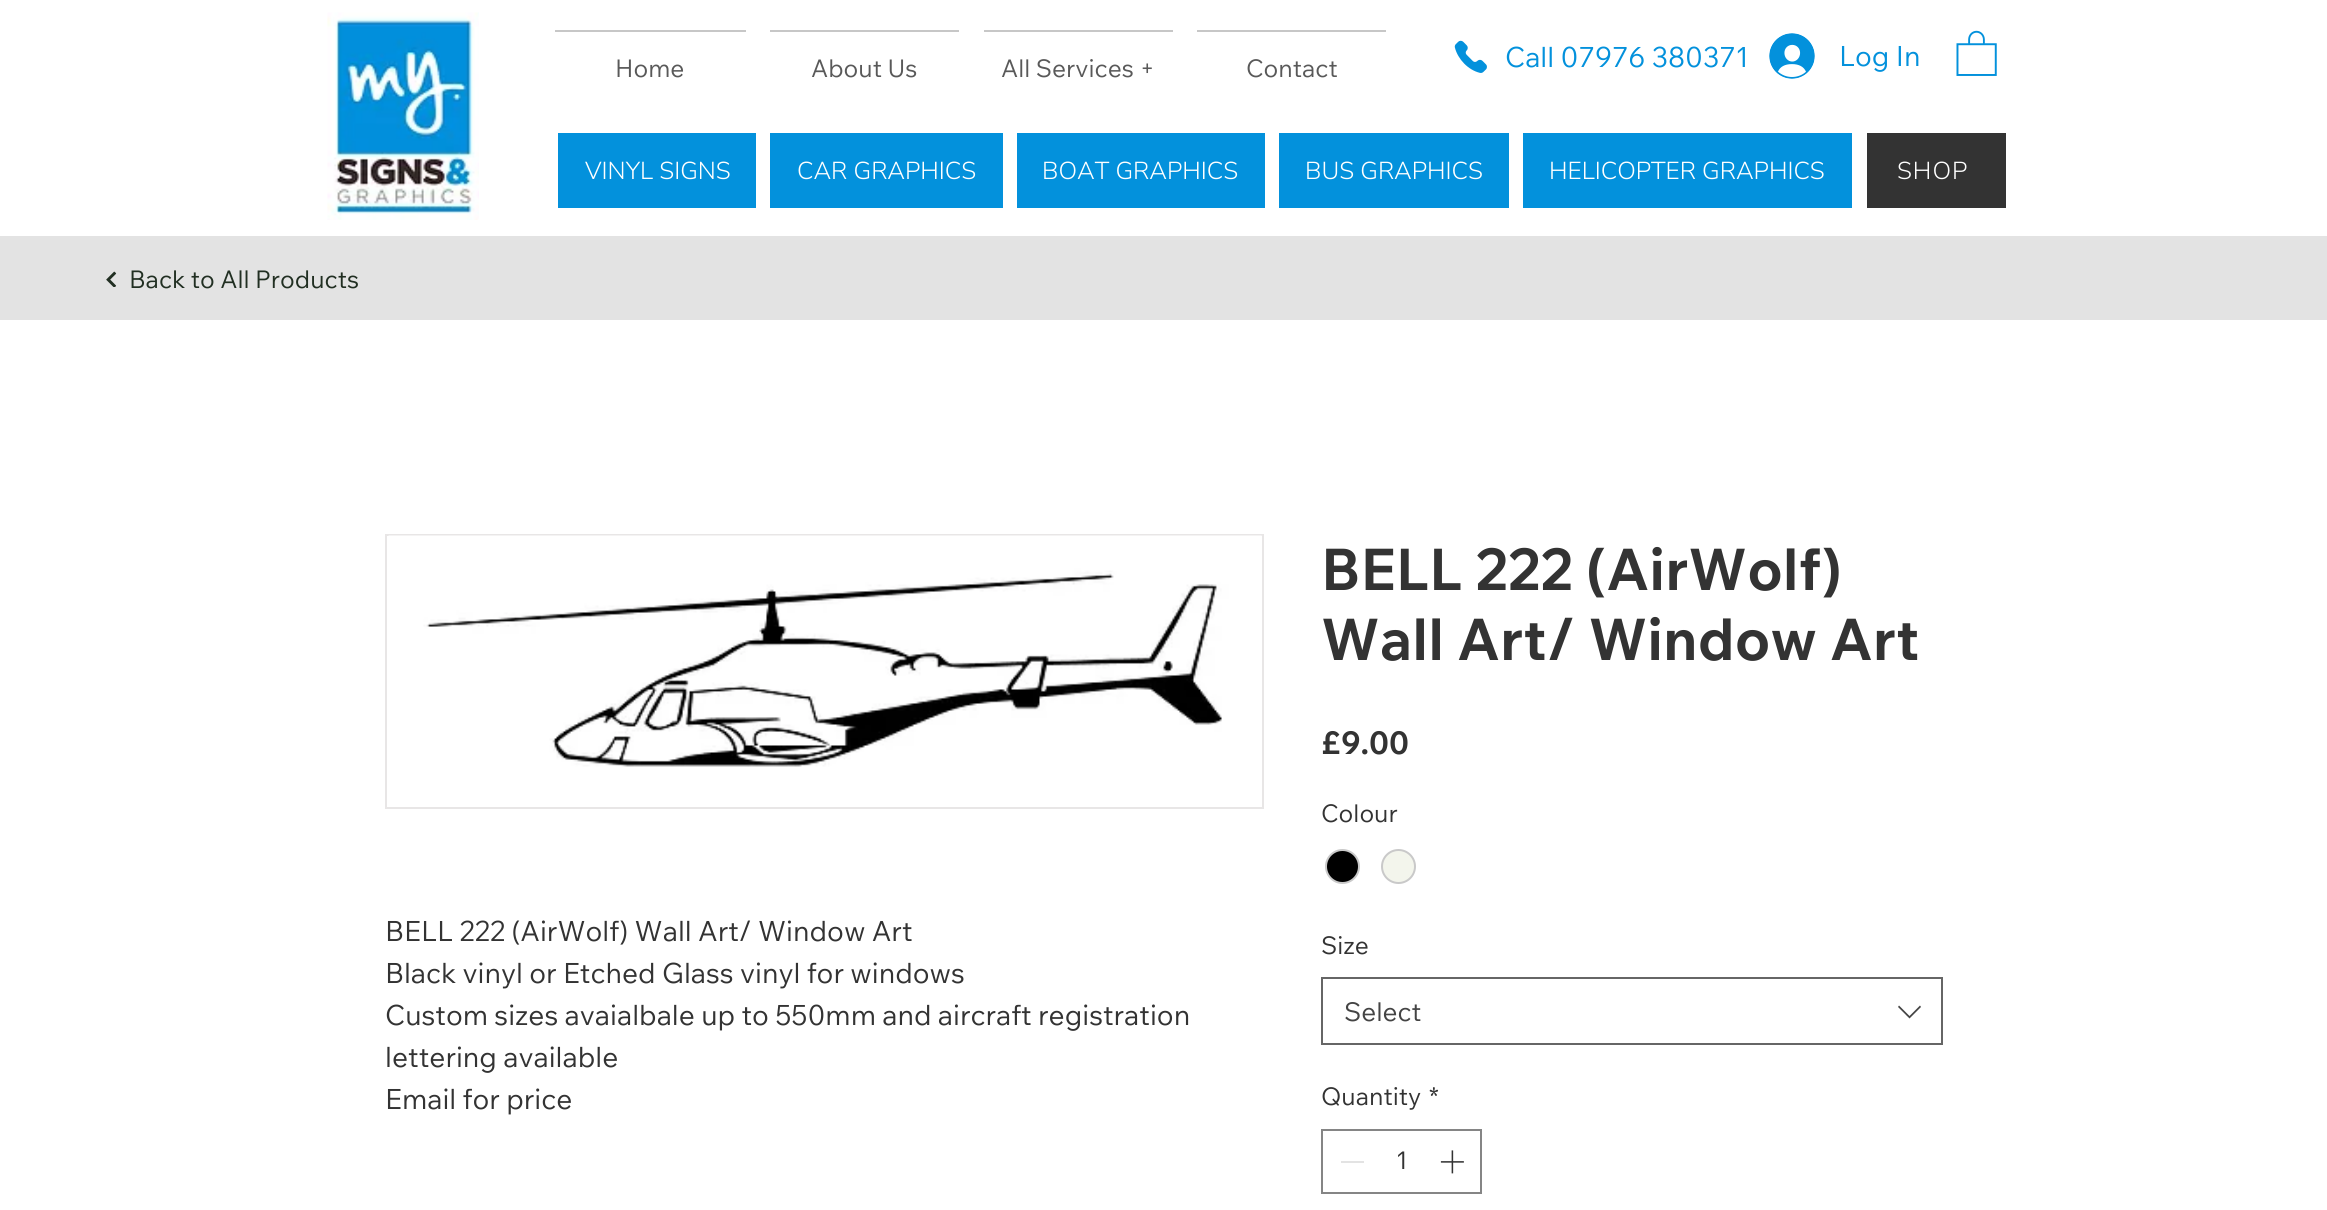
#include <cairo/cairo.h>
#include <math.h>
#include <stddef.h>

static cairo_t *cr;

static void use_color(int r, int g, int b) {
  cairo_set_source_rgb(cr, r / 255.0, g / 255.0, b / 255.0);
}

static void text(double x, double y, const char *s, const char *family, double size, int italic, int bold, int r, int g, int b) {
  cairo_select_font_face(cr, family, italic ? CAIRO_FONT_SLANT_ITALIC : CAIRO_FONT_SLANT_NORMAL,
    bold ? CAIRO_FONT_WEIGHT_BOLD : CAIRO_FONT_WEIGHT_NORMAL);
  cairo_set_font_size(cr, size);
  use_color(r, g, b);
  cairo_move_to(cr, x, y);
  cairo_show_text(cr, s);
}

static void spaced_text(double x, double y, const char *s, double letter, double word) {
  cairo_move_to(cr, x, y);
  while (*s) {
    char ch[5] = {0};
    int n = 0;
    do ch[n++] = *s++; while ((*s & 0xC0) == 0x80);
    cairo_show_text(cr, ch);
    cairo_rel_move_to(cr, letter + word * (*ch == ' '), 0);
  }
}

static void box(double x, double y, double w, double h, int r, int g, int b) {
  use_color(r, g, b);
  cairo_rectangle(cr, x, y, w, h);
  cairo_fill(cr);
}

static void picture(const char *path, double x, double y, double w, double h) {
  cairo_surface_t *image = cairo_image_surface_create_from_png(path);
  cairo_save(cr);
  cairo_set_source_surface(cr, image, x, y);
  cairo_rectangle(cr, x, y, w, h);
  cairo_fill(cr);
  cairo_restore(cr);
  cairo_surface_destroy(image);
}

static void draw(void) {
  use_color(255, 255, 255);
  cairo_paint(cr);
  picture("img_01.png", 327, 12, 152, 208);
  box(555, 30, 191, 2, 199, 199, 199);
  box(770, 30, 189, 2, 199, 199, 199);
  box(984, 30, 189, 2, 199, 199, 199);
  box(1197, 30, 189, 2, 199, 199, 199);
  picture("img_02.png", 1454, 40, 33, 33);
  picture("img_03.png", 1769, 33, 46, 46);
  picture("img_04.png", 1956, 30, 41, 46);
  box(558, 133, 198, 75, 3, 145, 220);
  box(770, 133, 233, 75, 3, 145, 220);
  box(1017, 133, 248, 75, 3, 145, 220);
  box(1279, 133, 230, 75, 3, 145, 220);
  box(1523, 133, 329, 75, 3, 145, 220);
  box(1867, 133, 139, 75, 51, 51, 51);
  box(0, 236, 2327, 84, 227, 227, 227);
  picture("img_05.png", 106, 271, 11, 16);
  cairo_rectangle(cr, 386, 535, 877, 273);
  use_color(232, 230, 230);
  cairo_stroke(cr);
  picture("img_06.png", 388, 535, 874, 232);
  use_color(0, 0, 0);
  cairo_arc(cr, 1342.5, 866.5, 16.5, 0, 2 * M_PI);
  cairo_fill_preserve(cr);
  use_color(201, 201, 201);
  cairo_stroke(cr);
  use_color(243, 245, 236);
  cairo_arc(cr, 1398.5, 866.5, 16.5, 0, 2 * M_PI);
  cairo_fill_preserve(cr);
  use_color(201, 201, 201);
  cairo_stroke(cr);
  cairo_rectangle(cr, 1322, 978, 620, 66);
  use_color(102, 102, 102);
  cairo_stroke(cr);
  use_color(68, 68, 68);
  cairo_set_fill_rule(cr, CAIRO_FILL_RULE_EVEN_ODD);
  cairo_new_path(cr);
  cairo_move_to(cr, 1920, 1005.5);
  cairo_line_to(cr, 1921, 1007);
  cairo_line_to(cr, 1909.5, 1018.5);
  cairo_line_to(cr, 1898, 1007);
  cairo_line_to(cr, 1899, 1005.5);
  cairo_line_to(cr, 1909.5, 1016);
  cairo_close_path(cr);
  cairo_fill(cr);
  cairo_rectangle(cr, 1322, 1130, 159, 63);
  use_color(133, 133, 133);
  cairo_stroke(cr);
  box(1341, 1161, 23, 2, 227, 227, 227);
  picture("img_07.png", 1440, 1150, 24, 24);
  text(615, 77, "Home", "Wix Madefor Text", 24.5, 0, 0, 89, 89, 89);
  text(811, 77, "About Us", "Wix Madefor Text", 24.5, 0, 0, 89, 89, 89);
  text(1001, 77, "All Services +", "Wix Madefor Text", 24.5, 0, 0, 89, 89, 89);
  text(1246, 77, "Contact", "Wix Madefor Text", 24.5, 0, 0, 89, 89, 89);
  text(1505, 67, "Call 07976 380371", "Wix Madefor Text", 28, 0, 0, 3, 145, 220);
  text(1839, 66, "Log In", "Wix Madefor Text", 28, 0, 0, 3, 145, 220);
  text(585, 179, "VINYL SIGNS", "Nunito Sans Light", 24.5, 0, 0, 255, 255, 255);
  text(797, 179, "CAR GRAPHICS", "Nunito Sans Light", 24.5, 0, 0, 255, 255, 255);
  text(1042, 179, "BOAT GRAPHICS", "Nunito Sans Light", 24.5, 0, 0, 255, 255, 255);
  text(1305, 179, "BUS GRAPHICS", "Nunito Sans Light", 24.5, 0, 0, 255, 255, 255);
  text(1549, 179, "HELICOPTER GRAPHICS", "Nunito Sans Light", 24.5, 0, 0, 255, 255, 255);
  spaced_text(1897, 179, "SHOP", 1, 0);
  text(129, 288, "Back to All Products", "Wix Madefor Text", 24.5, 0, 0, 33, 47, 34);
  text(385, 941, "BELL 222 (AirWolf) Wall Art/ Window Art", "Wix Madefor Text", 28, 0, 0, 51, 51, 51);
  text(385, 983, "Black vinyl or Etched Glass vinyl for windows", "Wix Madefor Text", 28, 0, 0, 51, 51, 51);
  text(385, 1025, "Custom sizes avaialbale up to 550mm and aircraft registration", "Wix Madefor Text", 28, 0, 0, 51, 51, 51);
  text(385, 1067, "lettering available", "Wix Madefor Text", 28, 0, 0, 51, 51, 51);
  text(385, 1109, "Email for price", "Wix Madefor Text", 28, 0, 0, 51, 51, 51);
  text(1321, 590, "BELL 222 (AirWolf)", "Wix Madefor Text", 57.75, 0, 1, 51, 51, 51);
  text(1321, 660, "Wall Art/ Window Art", "Wix Madefor Text", 57.75, 0, 1, 51, 51, 51);
  text(1321, 754, "£9.00", "Wix Madefor Text", 31.5, 0, 1, 51, 51, 51);
  text(1321, 822, "Colour", "Wix Madefor Text", 24.5, 0, 0, 51, 51, 51);
  text(1321, 954, "Size", "Wix Madefor Text", 24.5, 0, 0, 51, 51, 51);
  text(1344, 1021, "Select", "Wix Madefor Text", 26, 0, 0, 68, 68, 68);
  text(1321, 1105, "Quantity", "Wix Madefor Text", 24.5, 0, 0, 51, 51, 51);
  text(1429, 1105, "*", "Wix Madefor Text", 24.5, 0, 0, 51, 51, 51);
  text(1396, 1169, "1", "Wix Madefor Text", 24.5, 0, 0, 51, 51, 51);
}

int main(void) {
  cairo_surface_t *surface = cairo_image_surface_create(CAIRO_FORMAT_RGB24, 2327, 1210);
  cr = cairo_create(surface);
  cairo_font_options_t *options = cairo_font_options_create();
  cairo_font_options_set_hint_metrics(options, CAIRO_HINT_METRICS_OFF);
  cairo_font_options_set_hint_style(options, CAIRO_HINT_STYLE_NONE);
  cairo_set_font_options(cr, options);
  cairo_set_miter_limit(cr, 4);
  draw();
  cairo_surface_write_to_png(surface, "out.png");
  cairo_font_options_destroy(options);
  cairo_destroy(cr);
  cairo_surface_destroy(surface);
  return 0;
}
